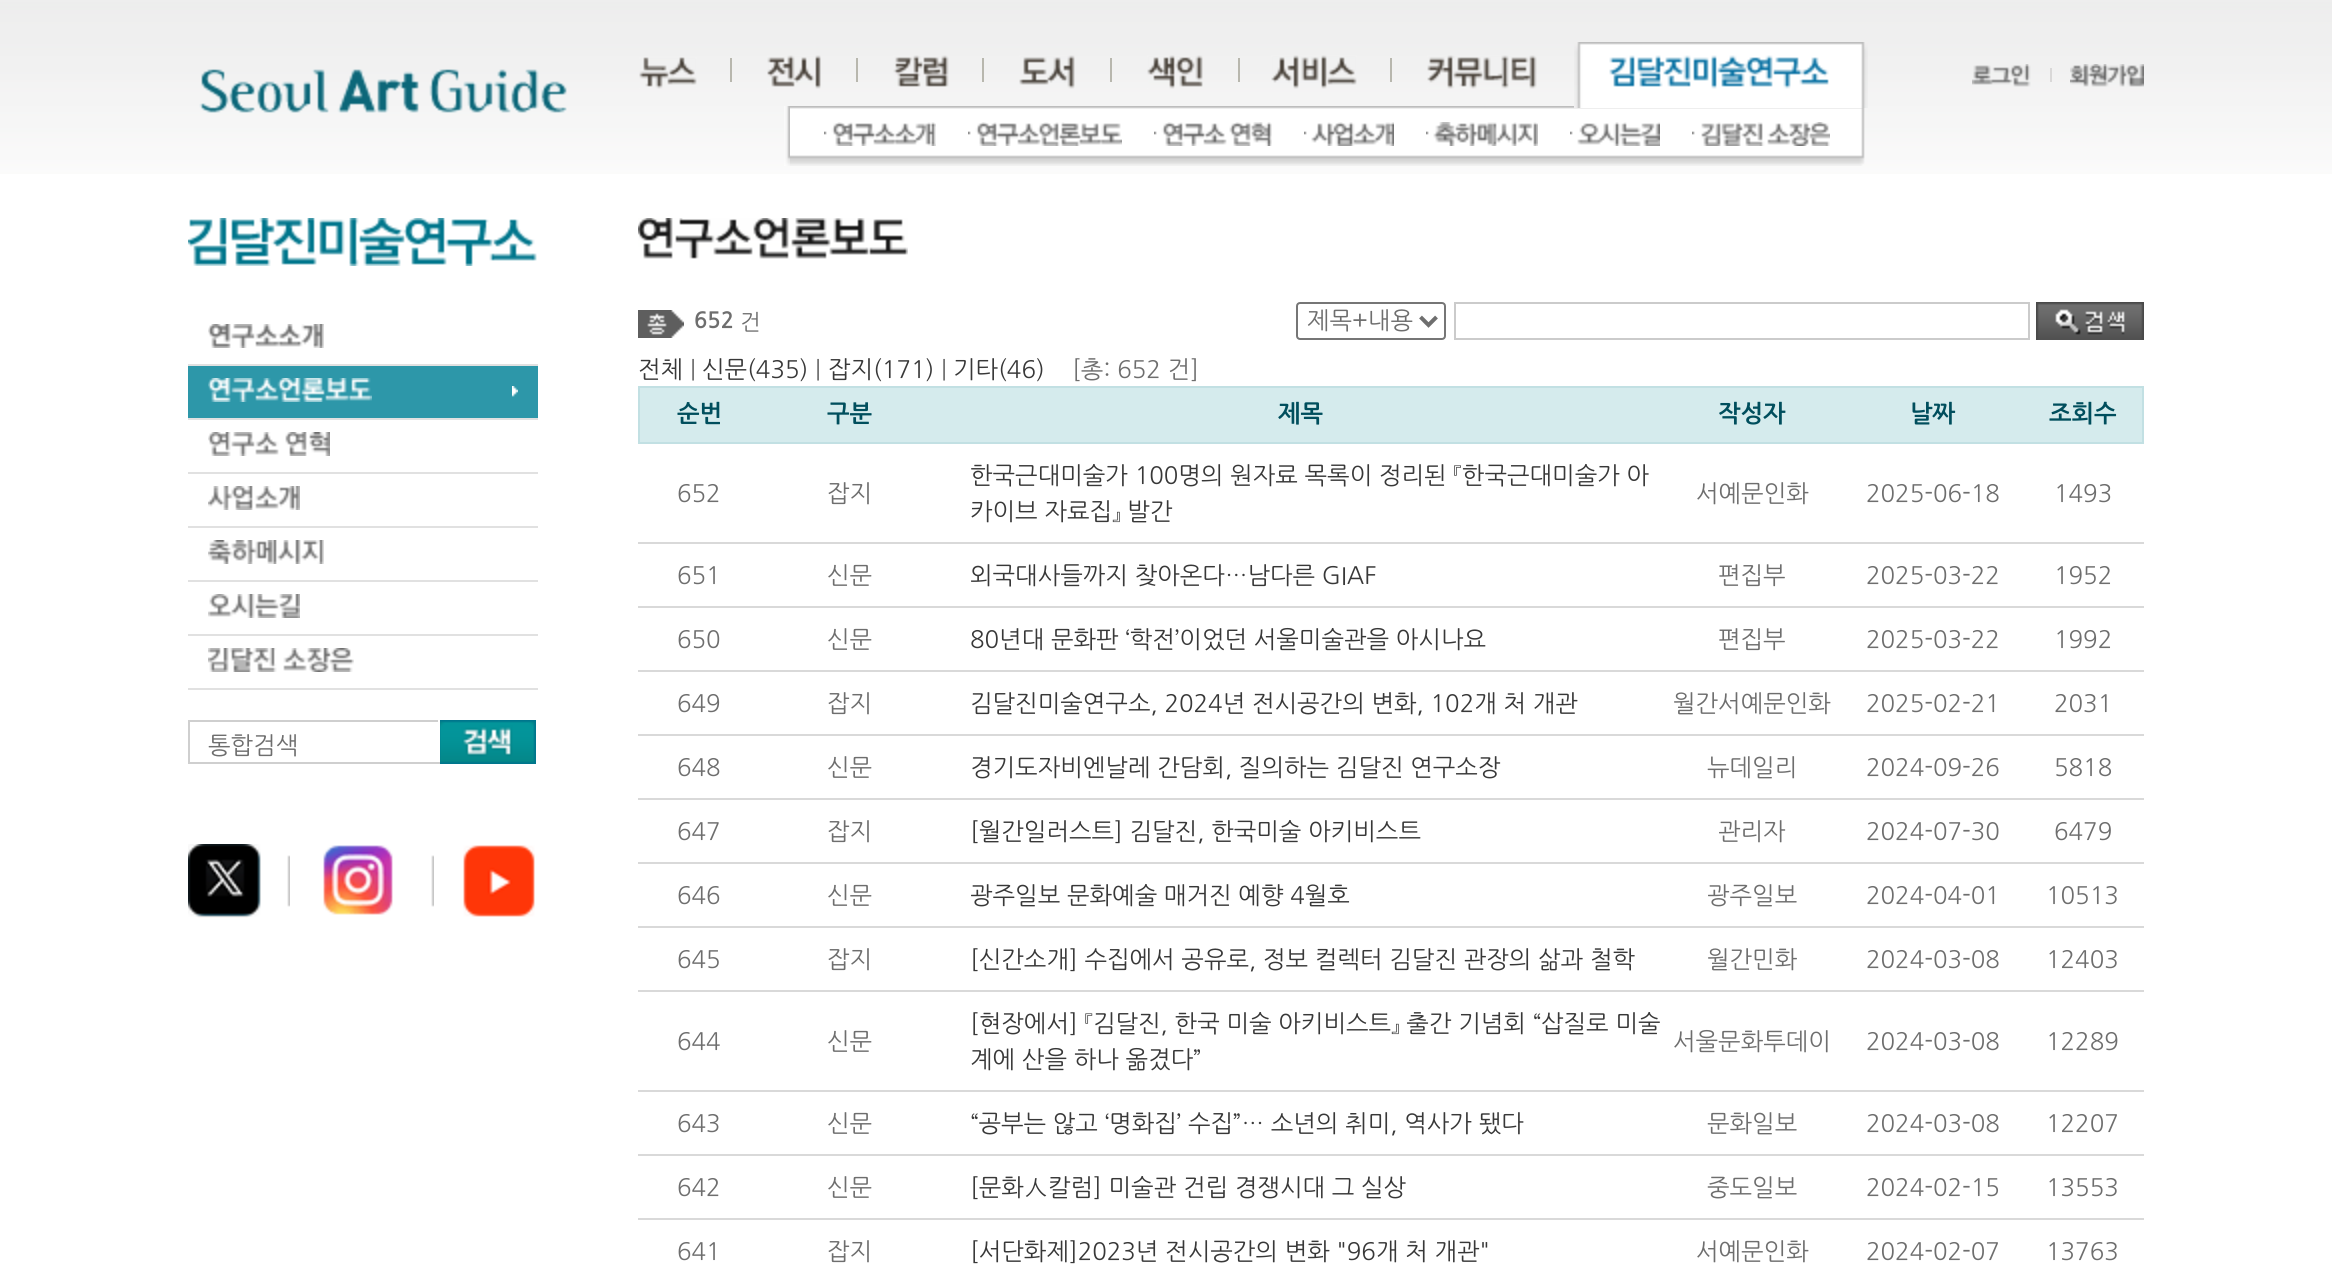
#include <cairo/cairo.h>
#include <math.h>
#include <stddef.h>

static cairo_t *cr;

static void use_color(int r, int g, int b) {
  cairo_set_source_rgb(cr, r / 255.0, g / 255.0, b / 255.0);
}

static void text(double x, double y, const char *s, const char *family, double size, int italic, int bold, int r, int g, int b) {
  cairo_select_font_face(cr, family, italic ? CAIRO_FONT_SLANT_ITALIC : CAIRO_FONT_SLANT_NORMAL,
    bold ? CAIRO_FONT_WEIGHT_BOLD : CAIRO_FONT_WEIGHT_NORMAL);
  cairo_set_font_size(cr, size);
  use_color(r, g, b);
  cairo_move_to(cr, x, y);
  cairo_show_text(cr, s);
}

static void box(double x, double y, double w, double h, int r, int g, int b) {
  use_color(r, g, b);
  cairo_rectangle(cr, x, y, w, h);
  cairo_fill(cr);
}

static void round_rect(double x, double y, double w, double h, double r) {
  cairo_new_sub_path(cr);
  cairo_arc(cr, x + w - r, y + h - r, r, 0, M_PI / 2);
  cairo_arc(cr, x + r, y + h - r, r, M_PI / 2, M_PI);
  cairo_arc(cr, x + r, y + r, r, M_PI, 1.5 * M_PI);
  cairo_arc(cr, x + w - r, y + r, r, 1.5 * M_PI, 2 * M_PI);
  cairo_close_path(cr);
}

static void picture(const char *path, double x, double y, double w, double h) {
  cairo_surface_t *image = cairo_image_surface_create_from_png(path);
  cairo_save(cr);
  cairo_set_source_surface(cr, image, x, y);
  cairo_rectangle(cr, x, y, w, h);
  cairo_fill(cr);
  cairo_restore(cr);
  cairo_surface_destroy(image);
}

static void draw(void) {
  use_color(255, 255, 255);
  cairo_paint(cr);
  picture("img_01.png", 0, 0, 2332, 174);
  picture("img_02.png", 199, 69, 368, 44);
  box(730, 58, 2, 24, 184, 183, 174);
  picture("img_03.png", 767, 55, 54, 34);
  picture("img_05.png", 790, 106, 1075, 60);
  picture("img_04.png", 1574, 42, 294, 66);
  picture("img_06.png", 784, 106, 6, 60);
  picture("img_07.png", 824, 122, 112, 24);
  picture("img_08.png", 968, 122, 154, 24);
  picture("img_09.png", 1154, 122, 118, 24);
  picture("img_10.png", 1304, 122, 90, 24);
  picture("img_11.png", 1426, 122, 112, 24);
  picture("img_12.png", 1570, 122, 90, 24);
  picture("img_13.png", 1692, 122, 138, 24);
  picture("img_14.png", 639, 57, 58, 32);
  box(856, 58, 2, 24, 184, 183, 174);
  picture("img_15.png", 893, 55, 56, 32);
  box(982, 58, 2, 24, 184, 183, 174);
  picture("img_16.png", 1019, 55, 56, 34);
  box(1110, 58, 2, 24, 184, 183, 174);
  picture("img_17.png", 1147, 55, 56, 34);
  box(1238, 58, 2, 24, 184, 183, 174);
  picture("img_18.png", 1271, 55, 86, 34);
  box(1390, 58, 2, 24, 184, 183, 174);
  picture("img_19.png", 1427, 55, 110, 34);
  picture("img_20.png", 1972, 64, 59, 23);
  box(2050, 68, 2, 14, 217, 216, 216);
  picture("img_21.png", 2070, 64, 74, 23);
  picture("img_22.png", 188, 218, 350, 48);
  box(188, 364, 350, 2, 225, 225, 225);
  picture("img_23.png", 208, 324, 116, 24);
  box(188, 366, 350, 52, 45, 151, 169);
  picture("img_24.png", 512, 386, 6, 11);
  box(188, 418, 350, 2, 225, 225, 225);
  picture("img_25.png", 208, 378, 164, 24);
  box(188, 472, 350, 2, 225, 225, 225);
  picture("img_26.png", 208, 432, 122, 24);
  box(188, 526, 350, 2, 225, 225, 225);
  picture("img_27.png", 208, 486, 92, 24);
  box(188, 580, 350, 2, 225, 225, 225);
  picture("img_28.png", 208, 540, 116, 24);
  box(188, 634, 350, 2, 225, 225, 225);
  picture("img_29.png", 208, 594, 92, 24);
  box(188, 688, 350, 2, 225, 225, 225);
  picture("img_30.png", 208, 648, 146, 24);
  box(188, 720, 252, 2, 207, 207, 207);
  box(438, 720, 2, 2, 255, 255, 255);
  box(188, 762, 252, 2, 207, 207, 207);
  box(188, 720, 2, 44, 207, 207, 207);
  picture("img_31.png", 440, 720, 96, 44);
  picture("img_32.png", 188, 844, 102, 74);
  picture("img_33.png", 323, 845, 111, 70);
  picture("img_34.png", 463, 845, 72, 72);
  picture("img_35.png", 638, 218, 270, 41);
  picture("img_36.png", 638, 310, 46, 28);
  round_rect(1297, 303, 148, 36, 3);
  use_color(118, 118, 118);
  cairo_stroke(cr);
  cairo_new_path(cr);
  cairo_move_to(cr, 1420.5, 317);
  cairo_line_to(cr, 1428.5, 325);
  cairo_line_to(cr, 1436.5, 317);
  use_color(110, 110, 110);
  cairo_set_line_width(cr, 4);
  cairo_stroke(cr);
  cairo_rectangle(cr, 1455, 303, 574, 36);
  use_color(203, 203, 203);
  cairo_set_line_width(cr, 2);
  cairo_stroke(cr);
  picture("img_37.png", 2036, 302, 108, 38);
  box(640, 388, 1502, 54, 213, 235, 237);
  box(638, 386, 1506, 2, 194, 224, 227);
  box(2142, 386, 2, 58, 194, 224, 227);
  box(638, 442, 1506, 2, 194, 224, 227);
  box(638, 386, 2, 58, 194, 224, 227);
  box(638, 542, 1506, 2, 217, 217, 217);
  box(638, 606, 1506, 2, 217, 217, 217);
  box(638, 670, 1506, 2, 217, 217, 217);
  box(638, 734, 1506, 2, 217, 217, 217);
  box(638, 798, 1506, 2, 217, 217, 217);
  box(638, 862, 1506, 2, 217, 217, 217);
  box(638, 926, 1506, 2, 217, 217, 217);
  box(638, 990, 1506, 2, 217, 217, 217);
  box(638, 1090, 1506, 2, 217, 217, 217);
  box(638, 1154, 1506, 2, 217, 217, 217);
  box(638, 1218, 1506, 2, 217, 217, 217);
  text(208, 754, "통합검색", "NanumGothic", 24, 0, 0, 110, 110, 110);
  text(694, 328, "652", "NanumGothic", 22, 0, 1, 110, 110, 110);
  text(740, 330, "건", "NanumGothic", 22, 0, 0, 110, 110, 110);
  text(1307, 329, "제목+내용", "NanumGothic", 24, 0, 0, 110, 110, 110);
  text(638, 378, "전체", "NanumGothic", 24, 0, 0, 56, 56, 56);
  text(690, 378, "|", "NanumGothic", 24, 0, 0, 110, 110, 110);
  text(702, 378, "신문(435)", "NanumGothic", 24, 0, 0, 56, 56, 56);
  text(815, 378, "|", "NanumGothic", 24, 0, 0, 110, 110, 110);
  text(828, 378, "잡지(171)", "NanumGothic", 24, 0, 0, 56, 56, 56);
  text(941, 378, "|", "NanumGothic", 24, 0, 0, 110, 110, 110);
  text(953, 378, "기타(46)", "NanumGothic", 24, 0, 0, 56, 56, 56);
  text(1072, 378, "[총: 652 건]", "NanumGothic", 24, 0, 0, 110, 110, 110);
  text(677, 422, "순번", "NanumGothic", 24, 0, 1, 0, 78, 93);
  text(827, 422, "구분", "NanumGothic", 24, 0, 1, 0, 78, 93);
  text(1278, 422, "제목", "NanumGothic", 24, 0, 1, 0, 78, 93);
  text(1718, 422, "작성자", "NanumGothic", 24, 0, 1, 0, 78, 93);
  text(1910, 422, "날짜", "NanumGothic", 24, 0, 1, 0, 78, 93);
  text(2049, 422, "조회수", "NanumGothic", 24, 0, 1, 0, 78, 93);
  text(677, 502, "652", "NanumGothic", 24, 0, 0, 110, 110, 110);
  text(827, 502, "잡지", "NanumGothic", 24, 0, 0, 110, 110, 110);
  text(970, 484, "한국근대미술가 100명의 원자료 목록이 정리된 『한국근대미술가 아", "NanumGothic", 24, 0, 0, 56, 56, 56);
  text(970, 520, "카이브 자료집』 발간", "NanumGothic", 24, 0, 0, 56, 56, 56);
  text(1696, 502, "서예문인화", "NanumGothic", 24, 0, 0, 110, 110, 110);
  text(1866, 502, "2025-06-18", "NanumGothic", 24, 0, 0, 110, 110, 110);
  text(2054, 502, "1493", "NanumGothic", 24, 0, 0, 110, 110, 110);
  text(677, 584, "651", "NanumGothic", 24, 0, 0, 110, 110, 110);
  text(827, 584, "신문", "NanumGothic", 24, 0, 0, 110, 110, 110);
  text(970, 584, "외국대사들까지 찾아온다…남다른 GIAF", "NanumGothic", 24, 0, 0, 56, 56, 56);
  text(1718, 584, "편집부", "NanumGothic", 24, 0, 0, 110, 110, 110);
  text(1866, 584, "2025-03-22", "NanumGothic", 24, 0, 0, 110, 110, 110);
  text(2054, 584, "1952", "NanumGothic", 24, 0, 0, 110, 110, 110);
  text(677, 648, "650", "NanumGothic", 24, 0, 0, 110, 110, 110);
  text(827, 648, "신문", "NanumGothic", 24, 0, 0, 110, 110, 110);
  text(970, 648, "80년대 문화판 ‘학전’이었던 서울미술관을 아시나요", "NanumGothic", 24, 0, 0, 56, 56, 56);
  text(1718, 648, "편집부", "NanumGothic", 24, 0, 0, 110, 110, 110);
  text(1866, 648, "2025-03-22", "NanumGothic", 24, 0, 0, 110, 110, 110);
  text(2054, 648, "1992", "NanumGothic", 24, 0, 0, 110, 110, 110);
  text(677, 712, "649", "NanumGothic", 24, 0, 0, 110, 110, 110);
  text(827, 712, "잡지", "NanumGothic", 24, 0, 0, 110, 110, 110);
  text(970, 712, "김달진미술연구소, 2024년 전시공간의 변화, 102개 처 개관", "NanumGothic", 24, 0, 0, 56, 56, 56);
  text(1673, 712, "월간서예문인화", "NanumGothic", 24, 0, 0, 110, 110, 110);
  text(1866, 712, "2025-02-21", "NanumGothic", 24, 0, 0, 110, 110, 110);
  text(2054, 712, "2031", "NanumGothic", 24, 0, 0, 110, 110, 110);
  text(677, 776, "648", "NanumGothic", 24, 0, 0, 110, 110, 110);
  text(827, 776, "신문", "NanumGothic", 24, 0, 0, 110, 110, 110);
  text(970, 776, "경기도자비엔날레 간담회, 질의하는 김달진 연구소장", "NanumGothic", 24, 0, 0, 56, 56, 56);
  text(1707, 776, "뉴데일리", "NanumGothic", 24, 0, 0, 110, 110, 110);
  text(1866, 776, "2024-09-26", "NanumGothic", 24, 0, 0, 110, 110, 110);
  text(2054, 776, "5818", "NanumGothic", 24, 0, 0, 110, 110, 110);
  text(677, 840, "647", "NanumGothic", 24, 0, 0, 110, 110, 110);
  text(827, 840, "잡지", "NanumGothic", 24, 0, 0, 110, 110, 110);
  text(970, 840, "[월간일러스트] 김달진, 한국미술 아키비스트", "NanumGothic", 24, 0, 0, 56, 56, 56);
  text(1718, 840, "관리자", "NanumGothic", 24, 0, 0, 110, 110, 110);
  text(1866, 840, "2024-07-30", "NanumGothic", 24, 0, 0, 110, 110, 110);
  text(2054, 840, "6479", "NanumGothic", 24, 0, 0, 110, 110, 110);
  text(677, 904, "646", "NanumGothic", 24, 0, 0, 110, 110, 110);
  text(827, 904, "신문", "NanumGothic", 24, 0, 0, 110, 110, 110);
  text(970, 904, "광주일보 문화예술 매거진 예향 4월호", "NanumGothic", 24, 0, 0, 56, 56, 56);
  text(1707, 904, "광주일보", "NanumGothic", 24, 0, 0, 110, 110, 110);
  text(1866, 904, "2024-04-01", "NanumGothic", 24, 0, 0, 110, 110, 110);
  text(2046, 904, "10513", "NanumGothic", 24, 0, 0, 110, 110, 110);
  text(677, 968, "645", "NanumGothic", 24, 0, 0, 110, 110, 110);
  text(827, 968, "잡지", "NanumGothic", 24, 0, 0, 110, 110, 110);
  text(970, 968, "[신간소개] 수집에서 공유로, 정보 컬렉터 김달진 관장의 삶과 철학", "NanumGothic", 24, 0, 0, 56, 56, 56);
  text(1707, 968, "월간민화", "NanumGothic", 24, 0, 0, 110, 110, 110);
  text(1866, 968, "2024-03-08", "NanumGothic", 24, 0, 0, 110, 110, 110);
  text(2046, 968, "12403", "NanumGothic", 24, 0, 0, 110, 110, 110);
  text(677, 1050, "644", "NanumGothic", 24, 0, 0, 110, 110, 110);
  text(827, 1050, "신문", "NanumGothic", 24, 0, 0, 110, 110, 110);
  text(970, 1032, "[현장에서] 『김달진, 한국 미술 아키비스트』 출간 기념회 “삽질로 미술", "NanumGothic", 24, 0, 0, 56, 56, 56);
  text(970, 1068, "계에 산을 하나 옮겼다”", "NanumGothic", 24, 0, 0, 56, 56, 56);
  text(1673, 1050, "서울문화투데이", "NanumGothic", 24, 0, 0, 110, 110, 110);
  text(1866, 1050, "2024-03-08", "NanumGothic", 24, 0, 0, 110, 110, 110);
  text(2046, 1050, "12289", "NanumGothic", 24, 0, 0, 110, 110, 110);
  text(677, 1132, "643", "NanumGothic", 24, 0, 0, 110, 110, 110);
  text(827, 1132, "신문", "NanumGothic", 24, 0, 0, 110, 110, 110);
  text(970, 1132, "“공부는 않고 ‘명화집’ 수집”… 소년의 취미, 역사가 됐다", "NanumGothic", 24, 0, 0, 56, 56, 56);
  text(1707, 1132, "문화일보", "NanumGothic", 24, 0, 0, 110, 110, 110);
  text(1866, 1132, "2024-03-08", "NanumGothic", 24, 0, 0, 110, 110, 110);
  text(2046, 1132, "12207", "NanumGothic", 24, 0, 0, 110, 110, 110);
  text(677, 1196, "642", "NanumGothic", 24, 0, 0, 110, 110, 110);
  text(827, 1196, "신문", "NanumGothic", 24, 0, 0, 110, 110, 110);
  text(970, 1196, "[문화", "NanumGothic", 24, 0, 0, 56, 56, 56);
  text(1024, 1196, "人", "Dotum", 24, 0, 0, 56, 56, 56);
  text(1048, 1196, "칼럼] 미술관 건립 경쟁시대 그 실상", "NanumGothic", 24, 0, 0, 56, 56, 56);
  text(1707, 1196, "중도일보", "NanumGothic", 24, 0, 0, 110, 110, 110);
  text(1866, 1196, "2024-02-15", "NanumGothic", 24, 0, 0, 110, 110, 110);
  text(2046, 1196, "13553", "NanumGothic", 24, 0, 0, 110, 110, 110);
  text(677, 1260, "641", "NanumGothic", 24, 0, 0, 110, 110, 110);
  text(827, 1260, "잡지", "NanumGothic", 24, 0, 0, 110, 110, 110);
  text(970, 1260, "[서단화제]2023년 전시공간의 변화 \"96개 처 개관\"", "NanumGothic", 24, 0, 0, 56, 56, 56);
  text(1696, 1260, "서예문인화", "NanumGothic", 24, 0, 0, 110, 110, 110);
  text(1866, 1260, "2024-02-07", "NanumGothic", 24, 0, 0, 110, 110, 110);
  text(2046, 1260, "13763", "NanumGothic", 24, 0, 0, 110, 110, 110);
}

int main(void) {
  cairo_surface_t *surface = cairo_image_surface_create(CAIRO_FORMAT_RGB24, 2332, 1280);
  cr = cairo_create(surface);
  cairo_font_options_t *options = cairo_font_options_create();
  cairo_font_options_set_hint_metrics(options, CAIRO_HINT_METRICS_OFF);
  cairo_font_options_set_hint_style(options, CAIRO_HINT_STYLE_NONE);
  cairo_set_font_options(cr, options);
  cairo_set_miter_limit(cr, 4);
  draw();
  cairo_surface_write_to_png(surface, "out.png");
  cairo_font_options_destroy(options);
  cairo_destroy(cr);
  cairo_surface_destroy(surface);
  return 0;
}
